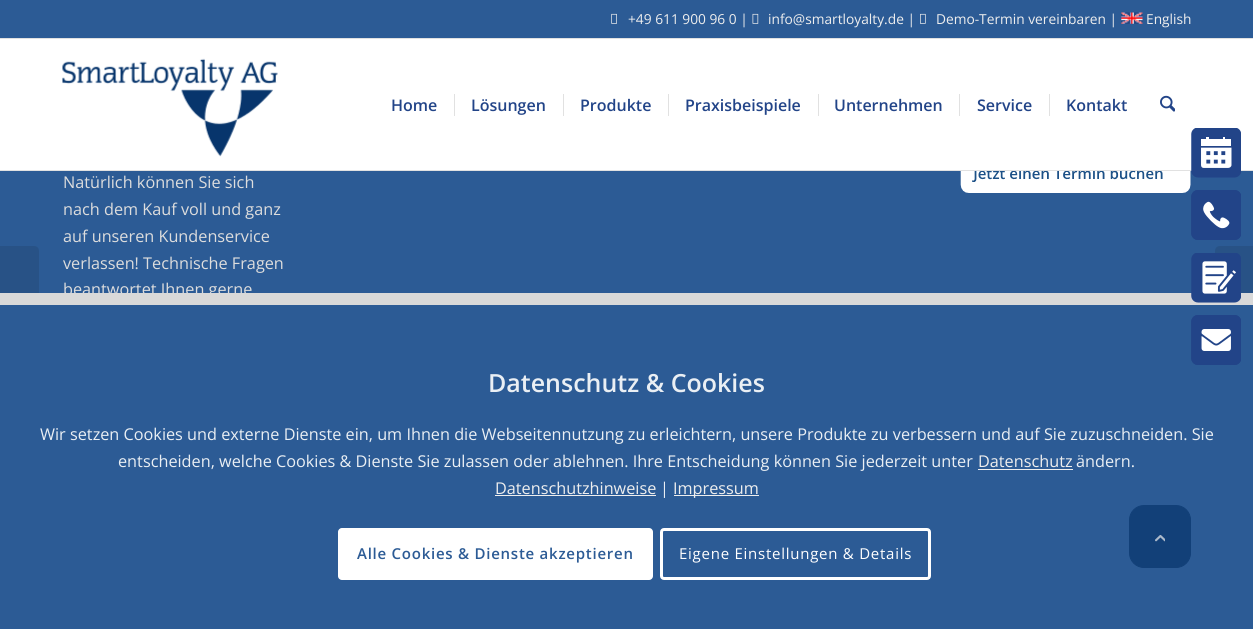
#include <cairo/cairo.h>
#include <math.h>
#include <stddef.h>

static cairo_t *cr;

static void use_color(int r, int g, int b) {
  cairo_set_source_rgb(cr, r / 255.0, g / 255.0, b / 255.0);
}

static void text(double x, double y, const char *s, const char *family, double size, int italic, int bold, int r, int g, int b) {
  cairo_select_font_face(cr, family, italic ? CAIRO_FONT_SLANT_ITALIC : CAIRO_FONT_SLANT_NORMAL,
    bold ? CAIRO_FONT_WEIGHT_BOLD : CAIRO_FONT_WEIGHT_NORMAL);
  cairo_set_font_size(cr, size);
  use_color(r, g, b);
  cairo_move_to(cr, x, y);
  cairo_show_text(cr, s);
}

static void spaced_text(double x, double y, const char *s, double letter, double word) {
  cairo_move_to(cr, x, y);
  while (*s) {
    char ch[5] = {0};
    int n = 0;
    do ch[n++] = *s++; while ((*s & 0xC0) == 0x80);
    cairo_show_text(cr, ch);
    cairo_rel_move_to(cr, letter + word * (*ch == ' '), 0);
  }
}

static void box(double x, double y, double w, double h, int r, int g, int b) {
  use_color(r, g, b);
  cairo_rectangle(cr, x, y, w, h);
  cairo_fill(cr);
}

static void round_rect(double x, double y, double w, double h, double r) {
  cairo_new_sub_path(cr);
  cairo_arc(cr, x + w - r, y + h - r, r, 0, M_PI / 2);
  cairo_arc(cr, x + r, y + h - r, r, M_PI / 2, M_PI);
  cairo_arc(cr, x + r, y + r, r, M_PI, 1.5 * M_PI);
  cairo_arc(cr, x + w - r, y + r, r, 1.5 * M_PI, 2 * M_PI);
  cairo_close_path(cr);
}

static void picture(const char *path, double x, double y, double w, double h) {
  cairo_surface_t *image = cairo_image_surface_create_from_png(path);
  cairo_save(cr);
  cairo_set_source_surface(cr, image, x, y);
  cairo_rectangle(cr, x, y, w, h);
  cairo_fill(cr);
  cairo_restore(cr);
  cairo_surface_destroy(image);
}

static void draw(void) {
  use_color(44, 91, 149);
  cairo_paint(cr);
  box(0, 39, 1253, 131, 255, 255, 255);
  box(0, 38, 1253, 1, 225, 225, 225);
  picture("img_01.png", 611, 13, 6, 11);
  picture("img_02.png", 752, 13, 7, 11);
  picture("img_03.png", 920, 13, 6, 11);
  picture("img_04.png", 1121, 12, 22, 12);
  box(0, 170, 1253, 1, 225, 225, 225);
  picture("img_05.png", 62, 58, 216, 99);
  box(454, 94, 1, 22, 225, 225, 225);
  box(563, 94, 1, 22, 225, 225, 225);
  box(668, 94, 1, 22, 225, 225, 225);
  box(818, 94, 1, 22, 225, 225, 225);
  box(959, 94, 1, 22, 225, 225, 225);
  box(1049, 94, 1, 22, 225, 225, 225);
  picture("img_06.png", 1160, 95, 15, 17);
  use_color(40, 82, 134);
  cairo_new_path(cr);
  cairo_move_to(cr, 0, 246);
  cairo_line_to(cr, 34, 246);
  cairo_curve_to(cr, 37, 246, 39, 248, 39, 251);
  cairo_line_to(cr, 39, 379);
  cairo_curve_to(cr, 39, 382, 37, 384, 34, 384);
  cairo_line_to(cr, 0, 384);
  cairo_close_path(cr);
  cairo_fill(cr);
  picture("img_07.png", 960, 171, 231, 22);
  cairo_new_path(cr);
  cairo_move_to(cr, 1220, 246);
  cairo_line_to(cr, 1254, 246);
  cairo_line_to(cr, 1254, 384);
  cairo_line_to(cr, 1220, 384);
  cairo_curve_to(cr, 1217, 384, 1215, 382, 1215, 379);
  cairo_line_to(cr, 1215, 251);
  cairo_curve_to(cr, 1215, 248, 1217, 246, 1220, 246);
  cairo_close_path(cr);
  cairo_fill(cr);
  picture("img_08.png", 1191, 128, 50, 50);
  picture("img_09.png", 1191, 190, 50, 50);
  box(0, 305, 1253, 79, 44, 91, 149);
  picture("img_11.png", 1191, 315, 50, 50);
  box(978, 469, 95, 1, 238, 238, 238);
  box(495, 495, 161, 1, 238, 238, 238);
  box(674, 495, 85, 1, 238, 238, 238);
  use_color(255, 255, 255);
  round_rect(338, 528, 315, 52, 4);
  cairo_fill(cr);
  round_rect(661.5, 529.5, 268, 49, 2.5);
  cairo_set_line_width(cr, 3);
  cairo_stroke(cr);
  use_color(18, 64, 120);
  round_rect(1129.5, 505.5, 61, 62, 14.5);
  cairo_fill_preserve(cr);
  cairo_set_line_width(cr, 1);
  cairo_stroke(cr);
  picture("img_12.png", 1155, 535, 10, 7);
  text(628, 24, "+49 611 900 96 0 |", "Open Sans", 13.75, 0, 0, 238, 238, 238);
  text(768, 24, "info@smartloyalty.de |", "Open Sans", 13.75, 0, 0, 238, 238, 238);
  text(936, 24, "Demo-Termin vereinbaren |", "Open Sans", 13.75, 0, 0, 238, 238, 238);
  text(1146, 24, "English", "Open Sans", 13.75, 0, 0, 238, 238, 238);
  text(391, 111, "Home", "Open Sans SemiBold", 16, 0, 0, 34, 68, 136);
  text(471, 111, "Lösungen", "Open Sans SemiBold", 16, 0, 0, 34, 68, 136);
  text(580, 111, "Produkte", "Open Sans SemiBold", 16, 0, 0, 34, 68, 136);
  text(685, 111, "Praxisbeispiele", "Open Sans SemiBold", 16, 0, 0, 34, 68, 136);
  text(834, 111, "Unternehmen", "Open Sans SemiBold", 16, 0, 0, 34, 68, 136);
  text(977, 111, "Service", "Open Sans SemiBold", 16, 0, 0, 34, 68, 136);
  text(1066, 111, "Kontakt", "Open Sans SemiBold", 16, 0, 0, 34, 68, 136);
  text(63, 188, "Natürlich können Sie sich", "Open Sans", 16.25, 0, 0, 221, 221, 221);
  text(63, 215, "nach dem Kauf voll und ganz", "Open Sans", 16.25, 0, 0, 221, 221, 221);
  text(63, 242, "auf unseren Kundenservice", "Open Sans", 16.25, 0, 0, 221, 221, 221);
  text(63, 269, "verlassen! Technische Fragen", "Open Sans", 16.25, 0, 0, 221, 221, 221);
  text(63, 295, "beantwortet Ihnen gerne", "Open Sans", 16.25, 0, 0, 221, 221, 221);
  box(0, 293, 1253, 12, 217, 217, 217);
  picture("img_10.png", 1191, 253, 50, 50);
  text(488, 392, "Datenschutz & Cookies", "Open Sans SemiBold", 25, 0, 0, 234, 239, 244);
  text(40, 440, "Wir setzen Cookies und externe Dienste ein, um Ihnen die Webseitennutzung zu erleichtern, unsere Produkte zu verbessern und auf Sie zuzuschneiden. Sie", "Open Sans", 16.25, 0, 0, 234, 239, 244);
  text(118, 467, "entscheiden, welche Cookies & Dienste Sie zulassen oder ablehnen. Ihre Entscheidung können Sie jederzeit unter", "Open Sans", 16.25, 0, 0, 234, 239, 244);
  text(978, 467, "Datenschutz", "Open Sans", 16.25, 0, 0, 238, 238, 238);
  text(1076, 467, "ändern.", "Open Sans", 16.25, 0, 0, 234, 239, 244);
  text(495, 494, "Datenschutzhinweise", "Open Sans", 16.25, 0, 0, 238, 238, 238);
  text(660, 494, "|", "Open Sans", 16.25, 0, 0, 234, 239, 244);
  text(673, 494, "Impressum", "Open Sans", 16.25, 0, 0, 238, 238, 238);
  cairo_select_font_face(cr, "Open Sans SemiBold", CAIRO_FONT_SLANT_NORMAL, CAIRO_FONT_WEIGHT_NORMAL);
  cairo_set_font_size(cr, 15);
  use_color(44, 91, 149);
  spaced_text(357, 559, "Alle Cookies & Dienste akzeptieren", 0.75, 0);
  cairo_select_font_face(cr, "Open Sans", CAIRO_FONT_SLANT_NORMAL, CAIRO_FONT_WEIGHT_NORMAL);
  use_color(255, 255, 255);
  spaced_text(679, 559, "Eigene Einstellungen & Details", 0.75, 0);
}

int main(void) {
  cairo_surface_t *surface = cairo_image_surface_create(CAIRO_FORMAT_RGB24, 1253, 629);
  cr = cairo_create(surface);
  cairo_font_options_t *options = cairo_font_options_create();
  cairo_font_options_set_hint_metrics(options, CAIRO_HINT_METRICS_OFF);
  cairo_font_options_set_hint_style(options, CAIRO_HINT_STYLE_NONE);
  cairo_set_font_options(cr, options);
  cairo_set_miter_limit(cr, 4);
  draw();
  cairo_surface_write_to_png(surface, "out.png");
  cairo_font_options_destroy(options);
  cairo_destroy(cr);
  cairo_surface_destroy(surface);
  return 0;
}
